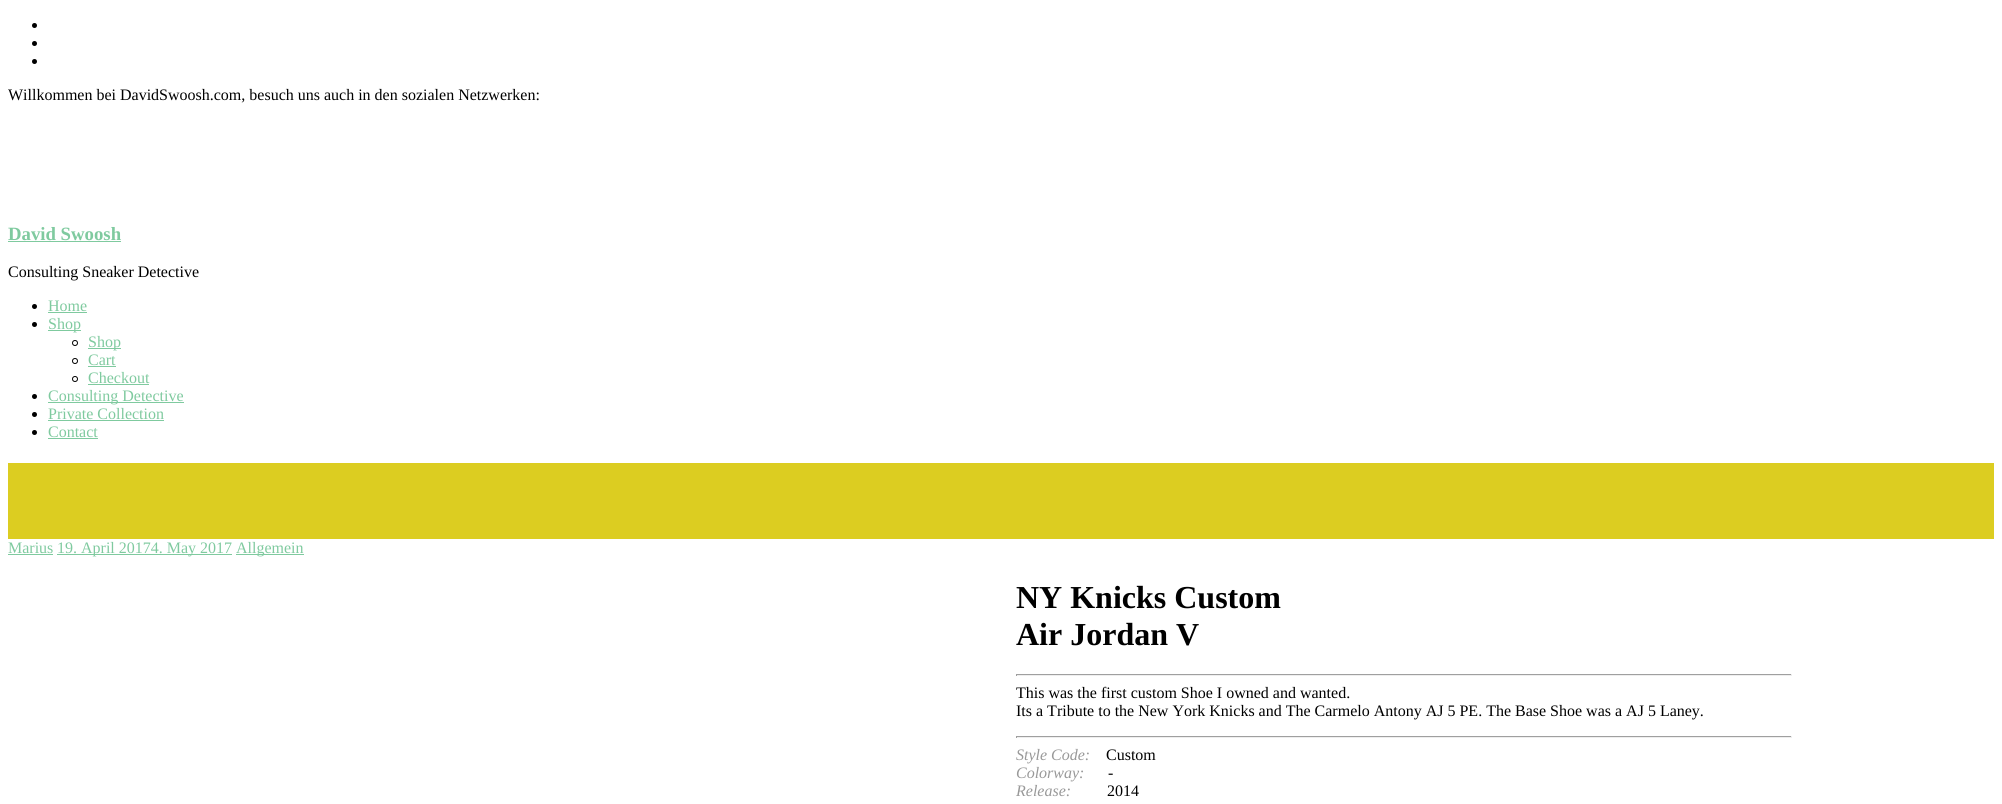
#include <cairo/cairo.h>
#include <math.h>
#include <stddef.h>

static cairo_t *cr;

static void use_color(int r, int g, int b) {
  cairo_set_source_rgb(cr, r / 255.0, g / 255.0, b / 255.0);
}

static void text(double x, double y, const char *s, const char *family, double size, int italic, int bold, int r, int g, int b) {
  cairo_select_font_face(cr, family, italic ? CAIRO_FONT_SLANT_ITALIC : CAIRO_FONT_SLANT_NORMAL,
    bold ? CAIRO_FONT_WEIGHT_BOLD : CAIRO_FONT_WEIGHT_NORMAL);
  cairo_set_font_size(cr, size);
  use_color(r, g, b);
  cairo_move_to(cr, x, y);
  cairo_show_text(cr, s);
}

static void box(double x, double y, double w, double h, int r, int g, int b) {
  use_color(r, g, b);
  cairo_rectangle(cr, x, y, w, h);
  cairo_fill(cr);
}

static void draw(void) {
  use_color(255, 255, 255);
  cairo_paint(cr);
  use_color(0, 0, 0);
  cairo_arc(cr, 34.5, 25.5, 2.5, 0, 2 * M_PI);
  cairo_fill(cr);
  cairo_arc(cr, 34.5, 43.5, 2.5, 0, 2 * M_PI);
  cairo_fill(cr);
  cairo_arc(cr, 34.5, 61.5, 2.5, 0, 2 * M_PI);
  cairo_fill(cr);
  box(8, 241, 113, 1, 127, 202, 159);
  use_color(0, 0, 0);
  cairo_arc(cr, 34.5, 306.5, 2.5, 0, 2 * M_PI);
  cairo_fill(cr);
  box(48, 312, 39, 1, 127, 202, 159);
  use_color(0, 0, 0);
  cairo_arc(cr, 34.5, 324.5, 2.5, 0, 2 * M_PI);
  cairo_fill(cr);
  box(48, 330, 33, 1, 127, 202, 159);
  cairo_arc(cr, 75, 343, 2.5, 0, 2 * M_PI);
  use_color(0, 0, 0);
  cairo_set_line_width(cr, 1);
  cairo_stroke(cr);
  box(88, 348, 33, 1, 127, 202, 159);
  cairo_arc(cr, 75, 361, 2.5, 0, 2 * M_PI);
  use_color(0, 0, 0);
  cairo_stroke(cr);
  box(88, 366, 28, 1, 127, 202, 159);
  cairo_arc(cr, 75, 379, 2.5, 0, 2 * M_PI);
  use_color(0, 0, 0);
  cairo_stroke(cr);
  box(88, 384, 61, 1, 127, 202, 159);
  use_color(0, 0, 0);
  cairo_arc(cr, 34.5, 396.5, 2.5, 0, 2 * M_PI);
  cairo_fill(cr);
  box(48, 402, 136, 1, 127, 202, 159);
  use_color(0, 0, 0);
  cairo_arc(cr, 34.5, 414.5, 2.5, 0, 2 * M_PI);
  cairo_fill(cr);
  box(48, 420, 116, 1, 127, 202, 159);
  use_color(0, 0, 0);
  cairo_arc(cr, 34.5, 432.5, 2.5, 0, 2 * M_PI);
  cairo_fill(cr);
  box(48, 438, 50, 1, 127, 202, 159);
  box(8, 463, 1986, 76, 220, 205, 33);
  box(8, 554, 45, 1, 127, 202, 159);
  box(57, 554, 175, 1, 127, 202, 159);
  box(236, 554, 68, 1, 127, 202, 159);
  box(1016, 674, 776, 1, 159, 159, 159);
  box(1791, 674, 1, 2, 238, 238, 238);
  box(1016, 675, 776, 1, 238, 238, 238);
  box(1016, 674, 1, 2, 159, 159, 159);
  box(1016, 736, 776, 1, 159, 159, 159);
  box(1791, 736, 1, 2, 238, 238, 238);
  box(1016, 737, 776, 1, 238, 238, 238);
  box(1016, 736, 1, 2, 159, 159, 159);
  text(8, 100, "Willkommen bei DavidSwoosh.com, besuch uns auch in den sozialen Netzwerken:", "Liberation Serif", 16, 0, 0, 0, 0, 0);
  text(8, 240, "David Swoosh", "Liberation Serif", 18.75, 0, 1, 127, 202, 159);
  text(8, 277, "Consulting Sneaker Detective", "Liberation Serif", 16, 0, 0, 0, 0, 0);
  text(48, 311, "Home", "Liberation Serif", 16, 0, 0, 127, 202, 159);
  text(48, 329, "Shop", "Liberation Serif", 16, 0, 0, 127, 202, 159);
  text(88, 347, "Shop", "Liberation Serif", 16, 0, 0, 127, 202, 159);
  text(88, 365, "Cart", "Liberation Serif", 16, 0, 0, 127, 202, 159);
  text(88, 383, "Checkout", "Liberation Serif", 16, 0, 0, 127, 202, 159);
  text(48, 401, "Consulting Detective", "Liberation Serif", 16, 0, 0, 127, 202, 159);
  text(48, 419, "Private Collection", "Liberation Serif", 16, 0, 0, 127, 202, 159);
  text(48, 437, "Contact", "Liberation Serif", 16, 0, 0, 127, 202, 159);
  text(8, 553, "Marius", "Liberation Serif", 16, 0, 0, 127, 202, 159);
  text(57, 553, "19. April 20174. May 2017", "Liberation Serif", 16, 0, 0, 127, 202, 159);
  text(236, 553, "Allgemein", "Liberation Serif", 16, 0, 0, 127, 202, 159);
  text(1016, 608, "NY Knicks Custom", "Liberation Serif", 32, 0, 1, 0, 0, 0);
  text(1016, 645, "Air Jordan V", "Liberation Serif", 32, 0, 1, 0, 0, 0);
  text(1016, 698, "This was the first custom Shoe I owned and wanted.", "Liberation Serif", 16, 0, 0, 0, 0, 0);
  text(1016, 716, "Its a Tribute to the New York Knicks and The Carmelo Antony AJ 5 PE. The Base Shoe was a AJ 5 Laney.", "Liberation Serif", 16, 0, 0, 0, 0, 0);
  text(1016, 760, "Style Code:", "Liberation Serif", 16, 1, 0, 153, 153, 153);
  text(1106, 760, "Custom", "Liberation Serif", 16, 0, 0, 0, 0, 0);
  text(1016, 778, "Colorway:", "Liberation Serif", 16, 1, 0, 153, 153, 153);
  text(1108, 778, "-", "Liberation Serif", 16, 0, 0, 0, 0, 0);
  text(1016, 796, "Release:", "Liberation Serif", 16, 1, 0, 153, 153, 153);
  text(1107, 796, "2014", "Liberation Serif", 16, 0, 0, 0, 0, 0);
}

int main(void) {
  cairo_surface_t *surface = cairo_image_surface_create(CAIRO_FORMAT_RGB24, 2002, 804);
  cr = cairo_create(surface);
  cairo_font_options_t *options = cairo_font_options_create();
  cairo_font_options_set_hint_metrics(options, CAIRO_HINT_METRICS_OFF);
  cairo_font_options_set_hint_style(options, CAIRO_HINT_STYLE_NONE);
  cairo_set_font_options(cr, options);
  cairo_set_miter_limit(cr, 4);
  draw();
  cairo_surface_write_to_png(surface, "out.png");
  cairo_font_options_destroy(options);
  cairo_destroy(cr);
  cairo_surface_destroy(surface);
  return 0;
}
